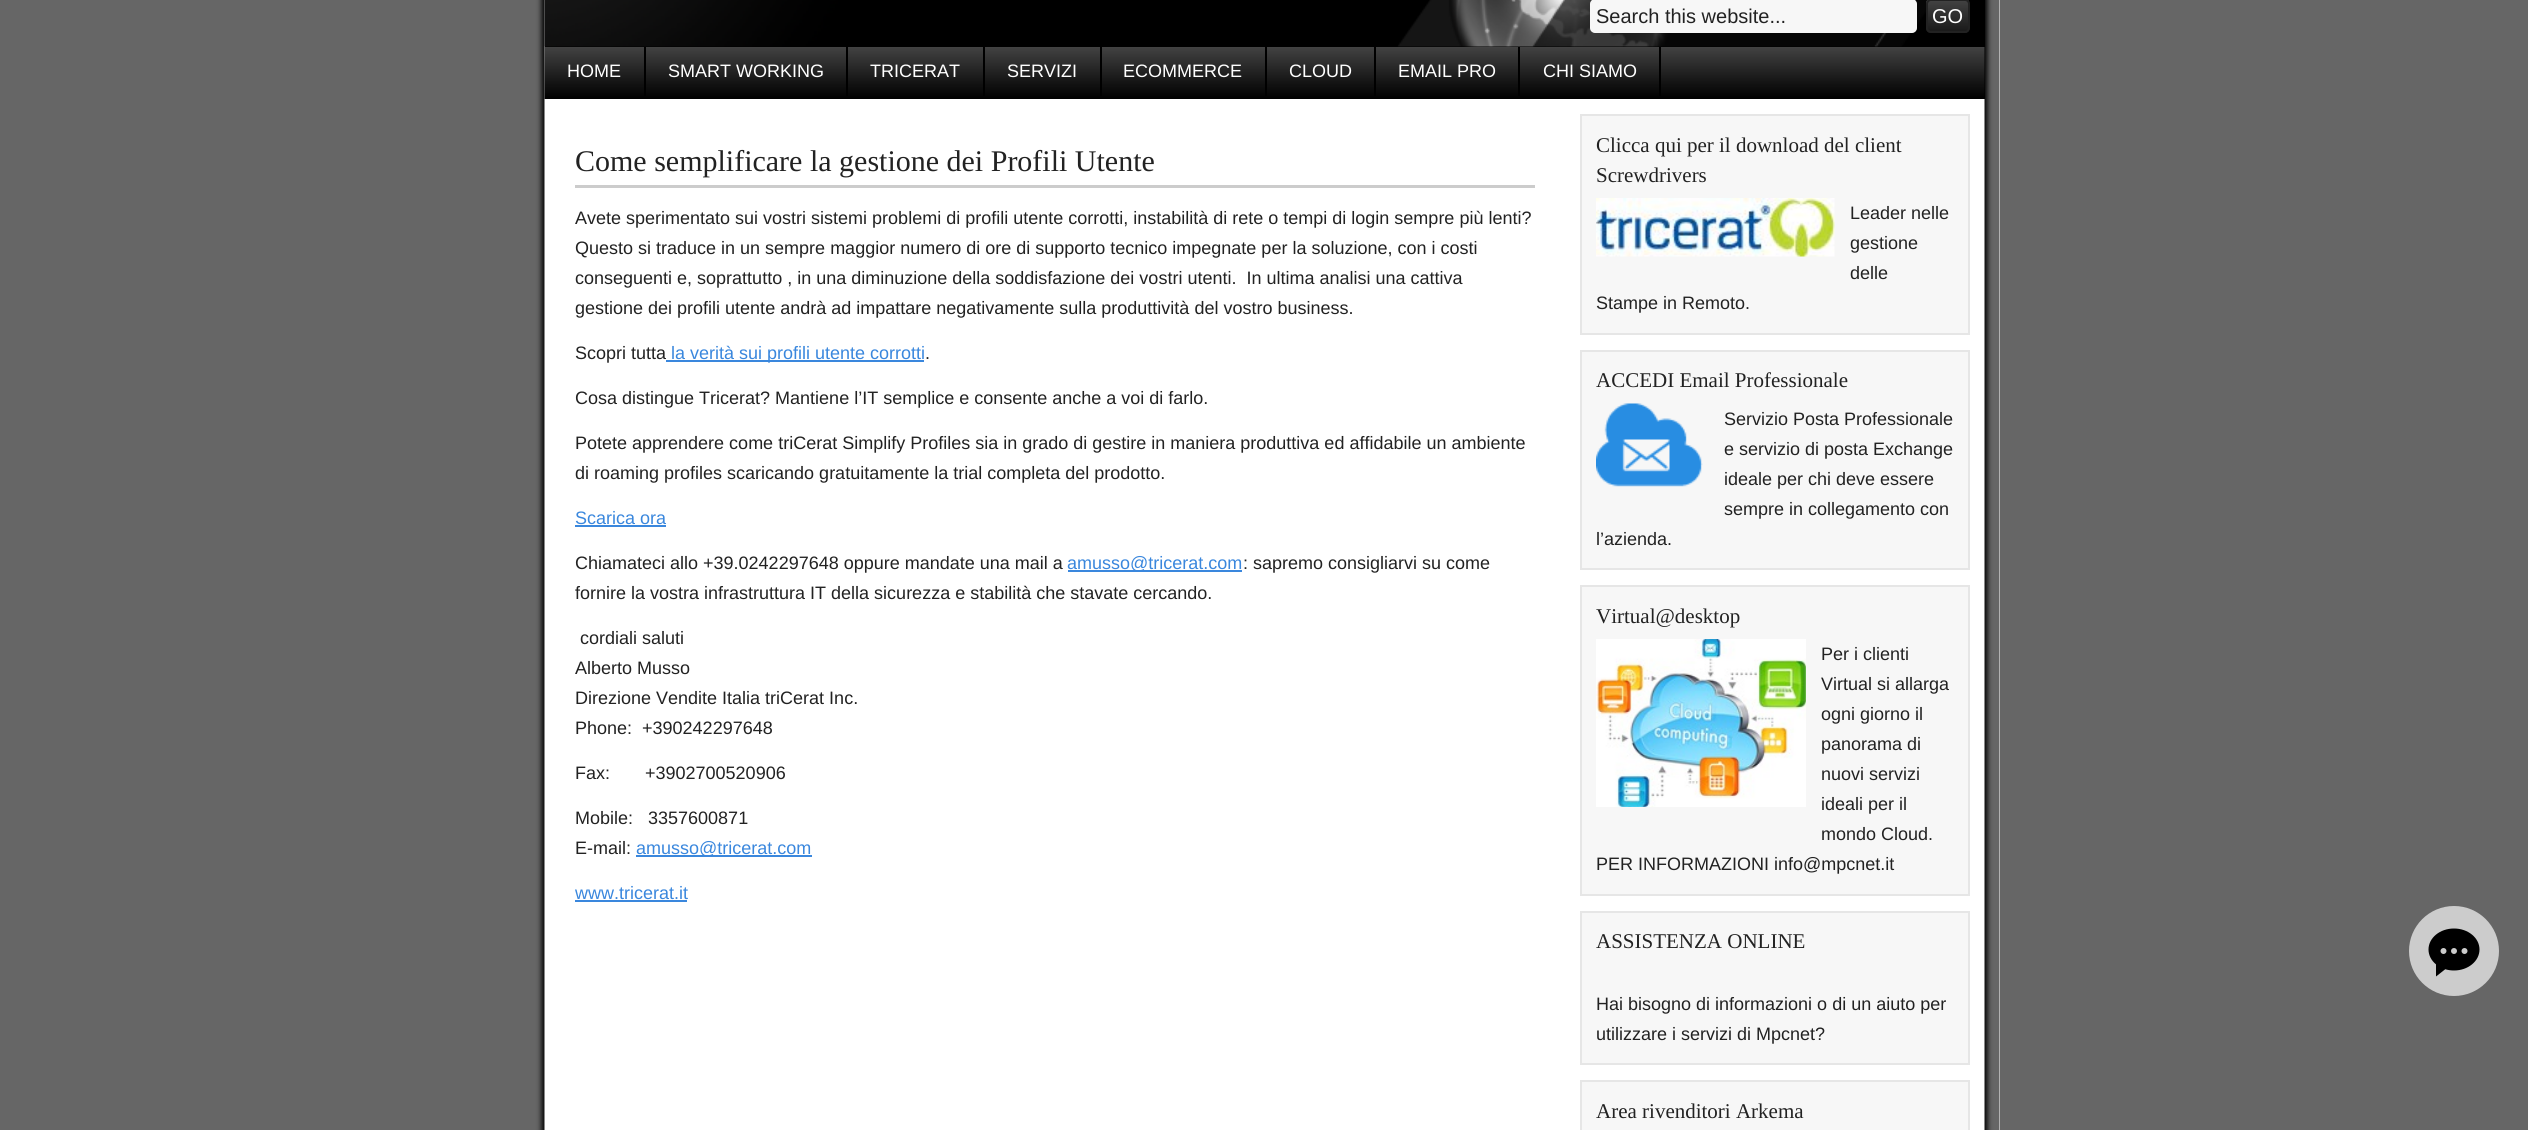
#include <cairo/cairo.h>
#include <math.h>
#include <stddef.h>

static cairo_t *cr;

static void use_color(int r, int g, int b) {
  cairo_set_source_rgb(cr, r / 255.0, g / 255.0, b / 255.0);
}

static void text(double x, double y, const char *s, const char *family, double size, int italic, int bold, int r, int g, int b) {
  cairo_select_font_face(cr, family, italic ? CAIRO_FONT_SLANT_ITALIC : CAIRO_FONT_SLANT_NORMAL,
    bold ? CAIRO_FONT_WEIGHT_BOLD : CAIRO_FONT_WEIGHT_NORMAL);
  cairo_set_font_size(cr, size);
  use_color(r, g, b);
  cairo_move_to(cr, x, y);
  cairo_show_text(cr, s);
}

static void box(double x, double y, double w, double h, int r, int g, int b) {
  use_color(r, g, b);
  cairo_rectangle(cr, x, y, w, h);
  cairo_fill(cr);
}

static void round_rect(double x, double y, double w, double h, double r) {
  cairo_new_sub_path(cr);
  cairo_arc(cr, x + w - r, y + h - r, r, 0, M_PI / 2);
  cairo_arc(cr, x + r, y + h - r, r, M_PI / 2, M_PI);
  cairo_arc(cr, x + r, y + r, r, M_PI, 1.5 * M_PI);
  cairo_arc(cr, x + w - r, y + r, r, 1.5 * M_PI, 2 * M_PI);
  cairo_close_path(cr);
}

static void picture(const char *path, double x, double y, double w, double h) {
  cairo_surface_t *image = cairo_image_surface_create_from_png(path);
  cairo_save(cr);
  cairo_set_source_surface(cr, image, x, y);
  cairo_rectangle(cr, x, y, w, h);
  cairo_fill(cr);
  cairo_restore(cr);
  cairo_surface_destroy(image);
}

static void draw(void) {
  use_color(102, 102, 102);
  cairo_paint(cr);
  box(1999, 0, 1, 1130, 255, 255, 255);
  picture("img_01.png", 530, 0, 1470, 1130);
  box(1984, 47, 1, 52, 0, 0, 0);
  picture("img_04.png", 544, 46, 1441, 53);
  box(545, 0, 1440, 47, 0, 0, 0);
  picture("img_02.png", 544, 0, 1389, 47);
  use_color(247, 247, 247);
  round_rect(1591, 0, 325, 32, 4);
  cairo_fill_preserve(cr);
  cairo_stroke(cr);
  picture("img_03.png", 1926, 0, 44, 33);
  round_rect(1927, 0, 42, 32, 4);
  use_color(34, 34, 34);
  cairo_stroke(cr);
  box(644, 47, 2, 49, 0, 0, 0);
  box(846, 47, 2, 49, 0, 0, 0);
  box(983, 47, 2, 49, 0, 0, 0);
  box(1100, 47, 2, 49, 0, 0, 0);
  box(1265, 47, 2, 49, 0, 0, 0);
  box(1374, 47, 2, 49, 0, 0, 0);
  box(1518, 47, 2, 49, 0, 0, 0);
  box(1659, 47, 2, 49, 0, 0, 0);
  box(575, 185, 960, 3, 204, 204, 204);
  box(666, 360, 258, 2, 58, 135, 221);
  box(575, 525, 91, 2, 58, 135, 221);
  box(1068, 570, 174, 2, 58, 135, 221);
  box(636, 855, 176, 2, 58, 135, 221);
  box(575, 900, 112, 2, 58, 135, 221);
  use_color(247, 247, 247);
  cairo_rectangle(cr, 1581, 115, 388, 219);
  cairo_fill_preserve(cr);
  use_color(230, 230, 230);
  cairo_stroke(cr);
  picture("img_05.png", 1596, 198, 239, 59);
  use_color(247, 247, 247);
  cairo_rectangle(cr, 1581, 351, 388, 218);
  cairo_fill_preserve(cr);
  use_color(230, 230, 230);
  cairo_stroke(cr);
  picture("img_06.png", 1596, 403, 107, 84);
  use_color(247, 247, 247);
  cairo_rectangle(cr, 1581, 586, 388, 309);
  cairo_fill_preserve(cr);
  use_color(230, 230, 230);
  cairo_stroke(cr);
  picture("img_07.png", 1596, 639, 210, 168);
  use_color(247, 247, 247);
  cairo_rectangle(cr, 1581, 912, 388, 152);
  cairo_fill_preserve(cr);
  use_color(230, 230, 230);
  cairo_stroke(cr);
  use_color(247, 247, 247);
  cairo_rectangle(cr, 1581, 1081, 388, 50);
  cairo_fill_preserve(cr);
  use_color(230, 230, 230);
  cairo_stroke(cr);
  picture("img_08.png", 2409, 906, 90, 90);
  text(1596, 23, "Search this website...", "Liberation Sans", 20, 0, 0, 34, 34, 34);
  text(1932, 23, "GO", "Liberation Sans", 20, 0, 0, 255, 255, 255);
  text(567, 77, "HOME", "Liberation Sans", 18, 0, 0, 255, 255, 255);
  text(668, 77, "SMART WORKING", "Liberation Sans", 18, 0, 0, 255, 255, 255);
  text(870, 77, "TRICERAT", "Liberation Sans", 18, 0, 0, 255, 255, 255);
  text(1007, 77, "SERVIZI", "Liberation Sans", 18, 0, 0, 255, 255, 255);
  text(1123, 77, "ECOMMERCE", "Liberation Sans", 18, 0, 0, 255, 255, 255);
  text(1289, 77, "CLOUD", "Liberation Sans", 18, 0, 0, 255, 255, 255);
  text(1398, 77, "EMAIL PRO", "Liberation Sans", 18, 0, 0, 255, 255, 255);
  text(1543, 77, "CHI SIAMO", "Liberation Sans", 18, 0, 0, 255, 255, 255);
  text(575, 171, "Come semplificare la gestione dei Profili Utente", "Liberation Serif", 30, 0, 0, 34, 34, 34);
  text(575, 224, "Avete sperimentato sui vostri sistemi problemi di profili utente corrotti, instabilità di rete o tempi di login sempre più lenti?", "Liberation Sans", 18, 0, 0, 34, 34, 34);
  text(575, 254, "Questo si traduce in un sempre maggior numero di ore di supporto tecnico impegnate per la soluzione, con i costi", "Liberation Sans", 18, 0, 0, 34, 34, 34);
  text(575, 284, "conseguenti e, soprattutto , in una diminuzione della soddisfazione dei vostri utenti.  In ultima analisi una cattiva", "Liberation Sans", 18, 0, 0, 34, 34, 34);
  text(575, 314, "gestione dei profili utente andrà ad impattare negativamente sulla produttività del vostro business.", "Liberation Sans", 18, 0, 0, 34, 34, 34);
  text(575, 359, "Scopri tutta", "Liberation Sans", 18, 0, 0, 34, 34, 34);
  text(671, 359, "la verità sui profili utente corrotti", "Liberation Sans", 18, 0, 0, 58, 135, 221);
  text(925, 359, ".", "Liberation Sans", 18, 0, 0, 34, 34, 34);
  text(575, 404, "Cosa distingue Tricerat? Mantiene l’IT semplice e consente anche a voi di farlo.", "Liberation Sans", 18, 0, 0, 34, 34, 34);
  text(575, 449, "Potete apprendere come triCerat Simplify Profiles sia in grado di gestire in maniera produttiva ed affidabile un ambiente", "Liberation Sans", 18, 0, 0, 34, 34, 34);
  text(575, 479, "di roaming profiles scaricando gratuitamente la trial completa del prodotto.", "Liberation Sans", 18, 0, 0, 34, 34, 34);
  text(575, 524, "Scarica ora", "Liberation Sans", 18, 0, 0, 58, 135, 221);
  text(575, 569, "Chiamateci allo +39.0242297648 oppure mandate una mail a", "Liberation Sans", 18, 0, 0, 34, 34, 34);
  text(1067, 569, "amusso@tricerat.com", "Liberation Sans", 18, 0, 0, 58, 135, 221);
  text(1243, 569, ": sapremo consigliarvi su come", "Liberation Sans", 18, 0, 0, 34, 34, 34);
  text(575, 599, "fornire la vostra infrastruttura IT della sicurezza e stabilità che stavate cercando.", "Liberation Sans", 18, 0, 0, 34, 34, 34);
  text(580, 644, "cordiali saluti", "Liberation Sans", 18, 0, 0, 34, 34, 34);
  text(575, 674, "Alberto Musso", "Liberation Sans", 18, 0, 0, 34, 34, 34);
  text(575, 704, "Direzione Vendite Italia triCerat Inc.", "Liberation Sans", 18, 0, 0, 34, 34, 34);
  text(575, 734, "Phone:  +390242297648", "Liberation Sans", 18, 0, 0, 34, 34, 34);
  text(575, 779, "Fax:       +3902700520906", "Liberation Sans", 18, 0, 0, 34, 34, 34);
  text(575, 824, "Mobile:   3357600871", "Liberation Sans", 18, 0, 0, 34, 34, 34);
  text(575, 854, "E-mail:", "Liberation Sans", 18, 0, 0, 34, 34, 34);
  text(636, 854, "amusso@tricerat.com", "Liberation Sans", 18, 0, 0, 58, 135, 221);
  text(575, 899, "www.tricerat.it", "Liberation Sans", 18, 0, 0, 58, 135, 221);
  text(1596, 152, "Clicca qui per il download del client", "Liberation Serif", 21, 0, 0, 34, 34, 34);
  text(1596, 182, "Screwdrivers", "Liberation Serif", 21, 0, 0, 34, 34, 34);
  text(1850, 219, "Leader nelle", "Liberation Sans", 18, 0, 0, 34, 34, 34);
  text(1850, 249, "gestione", "Liberation Sans", 18, 0, 0, 34, 34, 34);
  text(1850, 279, "delle", "Liberation Sans", 18, 0, 0, 34, 34, 34);
  text(1596, 309, "Stampe in Remoto.", "Liberation Sans", 18, 0, 0, 34, 34, 34);
  text(1596, 387, "ACCEDI Email Professionale", "Liberation Serif", 21, 0, 0, 34, 34, 34);
  text(1724, 425, "Servizio Posta Professionale", "Liberation Sans", 18, 0, 0, 34, 34, 34);
  text(1724, 455, "e servizio di posta Exchange", "Liberation Sans", 18, 0, 0, 34, 34, 34);
  text(1724, 485, "ideale per chi deve essere", "Liberation Sans", 18, 0, 0, 34, 34, 34);
  text(1724, 515, "sempre in collegamento con", "Liberation Sans", 18, 0, 0, 34, 34, 34);
  text(1596, 545, "l’azienda.", "Liberation Sans", 18, 0, 0, 34, 34, 34);
  text(1596, 623, "Virtual@desktop", "Liberation Serif", 21, 0, 0, 34, 34, 34);
  text(1821, 660, "Per i clienti", "Liberation Sans", 18, 0, 0, 34, 34, 34);
  text(1821, 690, "Virtual si allarga", "Liberation Sans", 18, 0, 0, 34, 34, 34);
  text(1821, 720, "ogni giorno il", "Liberation Sans", 18, 0, 0, 34, 34, 34);
  text(1821, 750, "panorama di", "Liberation Sans", 18, 0, 0, 34, 34, 34);
  text(1821, 780, "nuovi servizi", "Liberation Sans", 18, 0, 0, 34, 34, 34);
  text(1821, 810, "ideali per il", "Liberation Sans", 18, 0, 0, 34, 34, 34);
  text(1821, 840, "mondo Cloud.", "Liberation Sans", 18, 0, 0, 34, 34, 34);
  text(1596, 870, "PER INFORMAZIONI info@mpcnet.it", "Liberation Sans", 18, 0, 0, 34, 34, 34);
  text(1596, 948, "ASSISTENZA ONLINE", "Liberation Serif", 21, 0, 0, 34, 34, 34);
  text(1596, 1010, "Hai bisogno di informazioni o di un aiuto per", "Liberation Sans", 18, 0, 0, 34, 34, 34);
  text(1596, 1040, "utilizzare i servizi di Mpcnet?", "Liberation Sans", 18, 0, 0, 34, 34, 34);
  text(1596, 1118, "Area rivenditori Arkema", "Liberation Serif", 21, 0, 0, 34, 34, 34);
}

int main(void) {
  cairo_surface_t *surface = cairo_image_surface_create(CAIRO_FORMAT_RGB24, 2528, 1130);
  cr = cairo_create(surface);
  cairo_font_options_t *options = cairo_font_options_create();
  cairo_font_options_set_hint_metrics(options, CAIRO_HINT_METRICS_OFF);
  cairo_font_options_set_hint_style(options, CAIRO_HINT_STYLE_NONE);
  cairo_set_font_options(cr, options);
  cairo_set_miter_limit(cr, 4);
  draw();
  cairo_surface_write_to_png(surface, "out.png");
  cairo_font_options_destroy(options);
  cairo_destroy(cr);
  cairo_surface_destroy(surface);
  return 0;
}
